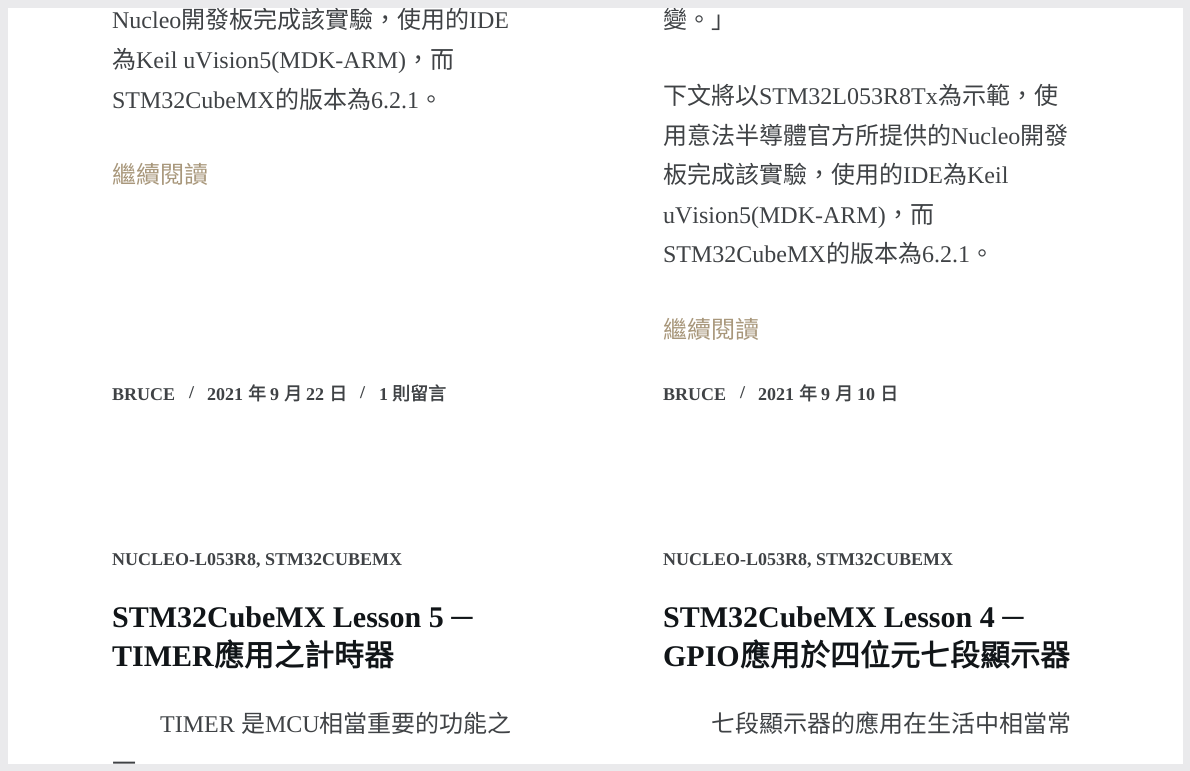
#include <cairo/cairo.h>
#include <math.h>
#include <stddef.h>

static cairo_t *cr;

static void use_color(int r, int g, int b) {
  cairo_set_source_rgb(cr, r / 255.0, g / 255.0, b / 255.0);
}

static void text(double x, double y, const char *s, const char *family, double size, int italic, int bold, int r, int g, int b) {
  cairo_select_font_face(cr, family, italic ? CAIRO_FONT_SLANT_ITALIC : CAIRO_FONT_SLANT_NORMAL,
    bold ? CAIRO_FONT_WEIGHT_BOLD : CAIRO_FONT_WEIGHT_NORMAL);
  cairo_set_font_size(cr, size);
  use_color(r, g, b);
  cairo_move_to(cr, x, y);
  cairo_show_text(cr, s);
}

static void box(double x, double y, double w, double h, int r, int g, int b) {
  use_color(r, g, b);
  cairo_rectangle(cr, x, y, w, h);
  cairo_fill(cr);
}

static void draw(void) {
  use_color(255, 255, 255);
  cairo_paint(cr);
  cairo_rectangle(cr, 4, -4, 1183, 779);
  use_color(234, 234, 236);
  cairo_set_line_width(cr, 8);
  cairo_stroke(cr);
  box(0, 764, 1190, 7, 234, 234, 236);
  text(112, 28, "Nucleo", "Liberation Serif", 24, 0, 0, 63, 66, 69);
  text(181, 28, "開發板完成該實驗，使用的", "Noto Sans CJK TC", 24, 0, 0, 63, 66, 69);
  text(469, 28, "IDE", "Liberation Serif", 24, 0, 0, 63, 66, 69);
  text(112, 68, "為", "Noto Sans CJK TC", 24, 0, 0, 63, 66, 69);
  text(136, 68, "Keil uVision5(MDK-ARM)", "Liberation Serif", 24, 0, 0, 63, 66, 69);
  text(406, 68, "，而", "Noto Sans CJK TC", 24, 0, 0, 63, 66, 69);
  text(112, 108, "STM32CubeMX", "Liberation Serif", 24, 0, 0, 63, 66, 69);
  text(275, 108, "的版本為", "Noto Sans CJK TC", 24, 0, 0, 63, 66, 69);
  text(371, 108, "6.2.1", "Liberation Serif", 24, 0, 0, 63, 66, 69);
  text(419, 108, "。", "Noto Sans CJK TC", 24, 0, 0, 63, 66, 69);
  text(112, 183, "繼續閱讀", "Noto Sans CJK TC", 24, 0, 0, 168, 151, 123);
  text(112, 400, "BRUCE", "Liberation Serif", 18, 0, 1, 63, 66, 69);
  text(189, 398, "/", "Liberation Serif", 18, 0, 1, 63, 66, 69);
  text(207, 400, "2021", "Liberation Serif", 18, 0, 1, 63, 66, 69);
  text(248, 400, "年", "Noto Sans CJK TC", 18, 0, 1, 63, 66, 69);
  text(270, 400, "9", "Liberation Serif", 18, 0, 1, 63, 66, 69);
  text(284, 400, "月", "Noto Sans CJK TC", 18, 0, 1, 63, 66, 69);
  text(306, 400, "22", "Liberation Serif", 18, 0, 1, 63, 66, 69);
  text(329, 400, "日", "Noto Sans CJK TC", 18, 0, 1, 63, 66, 69);
  text(360, 398, "/", "Liberation Serif", 18, 0, 1, 63, 66, 69);
  text(379, 400, "1", "Liberation Serif", 18, 0, 1, 63, 66, 69);
  text(392, 400, "則留言", "Noto Sans CJK TC", 18, 0, 1, 63, 66, 69);
  text(663, 28, "變。」", "Noto Sans CJK TC", 24, 0, 0, 63, 66, 69);
  box(0, 0, 1190, 8, 234, 234, 236);
  text(663, 104, "下文將以", "Noto Sans CJK TC", 24, 0, 0, 63, 66, 69);
  text(759, 104, "STM32L053R8Tx", "Liberation Serif", 24, 0, 0, 63, 66, 69);
  text(938, 104, "為示範，使", "Noto Sans CJK TC", 24, 0, 0, 63, 66, 69);
  text(663, 144, "用意法半導體官方所提供的", "Noto Sans CJK TC", 24, 0, 0, 63, 66, 69);
  text(951, 144, "Nucleo", "Liberation Serif", 24, 0, 0, 63, 66, 69);
  text(1020, 144, "開發", "Noto Sans CJK TC", 24, 0, 0, 63, 66, 69);
  text(663, 183, "板完成該實驗，使用的", "Noto Sans CJK TC", 24, 0, 0, 63, 66, 69);
  text(903, 183, "IDE", "Liberation Serif", 24, 0, 0, 63, 66, 69);
  text(943, 183, "為", "Noto Sans CJK TC", 24, 0, 0, 63, 66, 69);
  text(967, 183, "Keil", "Liberation Serif", 24, 0, 0, 63, 66, 69);
  text(663, 223, "uVision5(MDK-ARM)", "Liberation Serif", 24, 0, 0, 63, 66, 69);
  text(886, 223, "，而", "Noto Sans CJK TC", 24, 0, 0, 63, 66, 69);
  text(663, 262, "STM32CubeMX", "Liberation Serif", 24, 0, 0, 63, 66, 69);
  text(826, 262, "的版本為", "Noto Sans CJK TC", 24, 0, 0, 63, 66, 69);
  text(922, 262, "6.2.1", "Liberation Serif", 24, 0, 0, 63, 66, 69);
  text(970, 262, "。", "Noto Sans CJK TC", 24, 0, 0, 63, 66, 69);
  text(663, 338, "繼續閱讀", "Noto Sans CJK TC", 24, 0, 0, 168, 151, 123);
  text(663, 400, "BRUCE", "Liberation Serif", 18, 0, 1, 63, 66, 69);
  text(740, 398, "/", "Liberation Serif", 18, 0, 1, 63, 66, 69);
  text(758, 400, "2021", "Liberation Serif", 18, 0, 1, 63, 66, 69);
  text(799, 400, "年", "Noto Sans CJK TC", 18, 0, 1, 63, 66, 69);
  text(821, 400, "9", "Liberation Serif", 18, 0, 1, 63, 66, 69);
  text(835, 400, "月", "Noto Sans CJK TC", 18, 0, 1, 63, 66, 69);
  text(857, 400, "10", "Liberation Serif", 18, 0, 1, 63, 66, 69);
  text(880, 400, "日", "Noto Sans CJK TC", 18, 0, 1, 63, 66, 69);
  text(112, 565, "NUCLEO-L053R8, STM32CUBEMX", "Liberation Serif", 18, 0, 1, 63, 66, 69);
  text(112, 627, "STM32CubeMX Lesson 5 ─", "Liberation Serif", 30, 0, 1, 17, 21, 24);
  text(112, 666, "TIMER", "Liberation Serif", 30, 0, 1, 17, 21, 24);
  text(214, 666, "應用之計時器", "Noto Sans CJK TC", 30, 0, 1, 17, 21, 24);
  text(160, 732, "TIMER", "Liberation Serif", 24, 0, 0, 63, 66, 69);
  text(241, 732, "是", "Noto Sans CJK TC", 24, 0, 0, 63, 66, 69);
  text(265, 732, "MCU", "Liberation Serif", 24, 0, 0, 63, 66, 69);
  text(319, 732, "相當重要的功能之", "Noto Sans CJK TC", 24, 0, 0, 63, 66, 69);
  text(112, 772, "一", "Noto Sans CJK TC", 24, 0, 0, 63, 66, 69);
  text(663, 565, "NUCLEO-L053R8, STM32CUBEMX", "Liberation Serif", 18, 0, 1, 63, 66, 69);
  text(663, 627, "STM32CubeMX Lesson 4 ─", "Liberation Serif", 30, 0, 1, 17, 21, 24);
  text(663, 666, "GPIO", "Liberation Serif", 30, 0, 1, 17, 21, 24);
  text(740, 666, "應用於四位元七段顯示器", "Noto Sans CJK TC", 30, 0, 1, 17, 21, 24);
  text(711, 732, "七段顯示器的應用在生活中相當常", "Noto Sans CJK TC", 24, 0, 0, 63, 66, 69);
}

int main(void) {
  cairo_surface_t *surface = cairo_image_surface_create(CAIRO_FORMAT_RGB24, 1190, 771);
  cr = cairo_create(surface);
  cairo_font_options_t *options = cairo_font_options_create();
  cairo_font_options_set_hint_metrics(options, CAIRO_HINT_METRICS_OFF);
  cairo_font_options_set_hint_style(options, CAIRO_HINT_STYLE_NONE);
  cairo_set_font_options(cr, options);
  cairo_set_miter_limit(cr, 4);
  draw();
  cairo_surface_write_to_png(surface, "out.png");
  cairo_font_options_destroy(options);
  cairo_destroy(cr);
  cairo_surface_destroy(surface);
  return 0;
}
